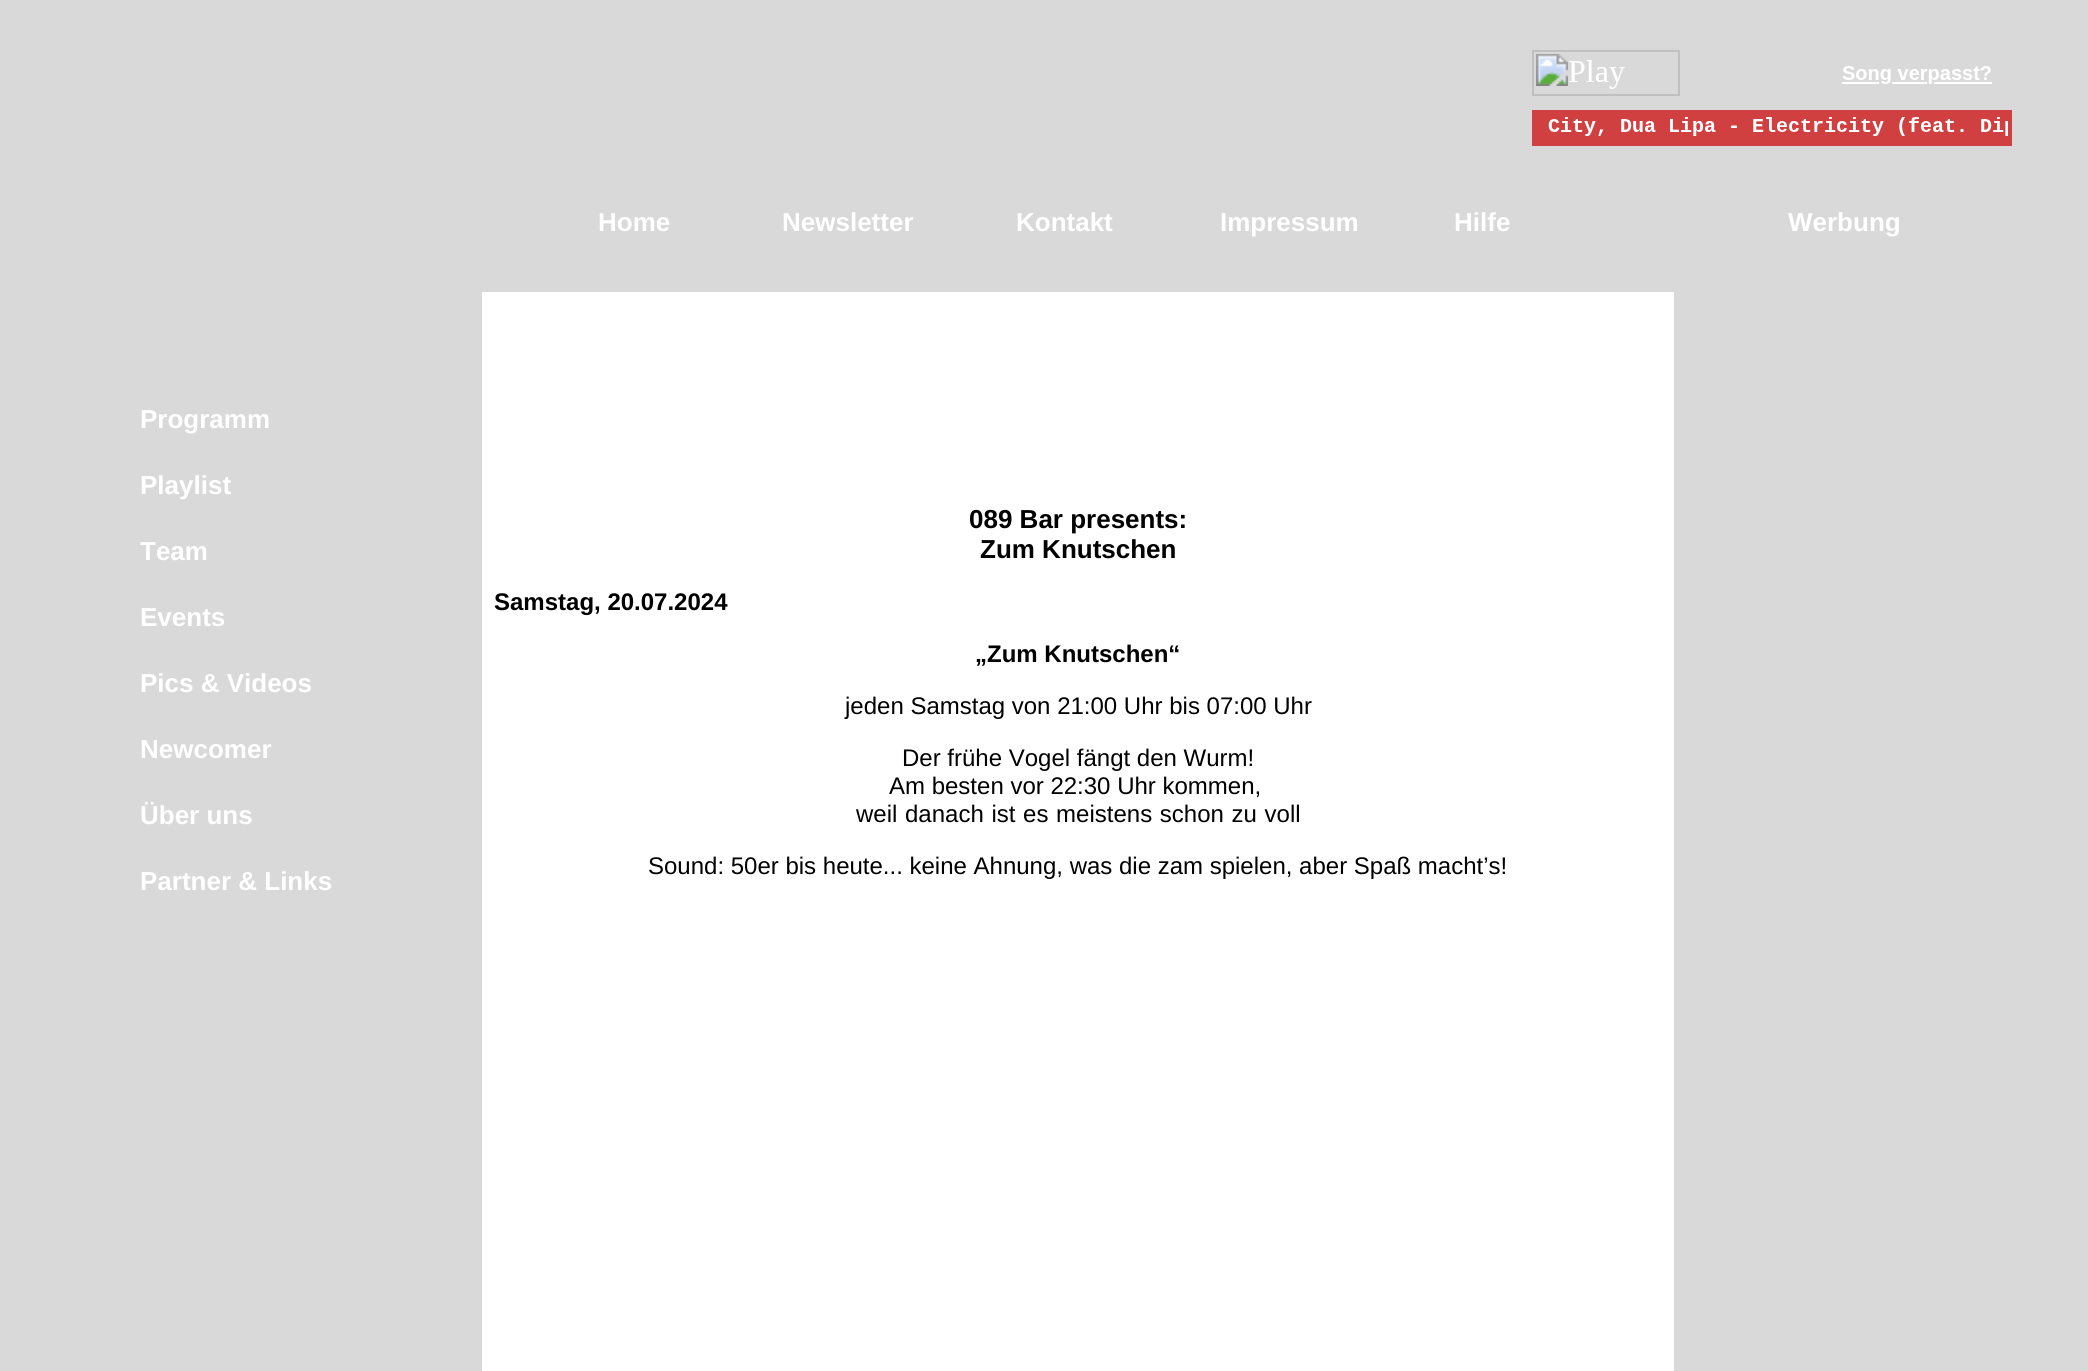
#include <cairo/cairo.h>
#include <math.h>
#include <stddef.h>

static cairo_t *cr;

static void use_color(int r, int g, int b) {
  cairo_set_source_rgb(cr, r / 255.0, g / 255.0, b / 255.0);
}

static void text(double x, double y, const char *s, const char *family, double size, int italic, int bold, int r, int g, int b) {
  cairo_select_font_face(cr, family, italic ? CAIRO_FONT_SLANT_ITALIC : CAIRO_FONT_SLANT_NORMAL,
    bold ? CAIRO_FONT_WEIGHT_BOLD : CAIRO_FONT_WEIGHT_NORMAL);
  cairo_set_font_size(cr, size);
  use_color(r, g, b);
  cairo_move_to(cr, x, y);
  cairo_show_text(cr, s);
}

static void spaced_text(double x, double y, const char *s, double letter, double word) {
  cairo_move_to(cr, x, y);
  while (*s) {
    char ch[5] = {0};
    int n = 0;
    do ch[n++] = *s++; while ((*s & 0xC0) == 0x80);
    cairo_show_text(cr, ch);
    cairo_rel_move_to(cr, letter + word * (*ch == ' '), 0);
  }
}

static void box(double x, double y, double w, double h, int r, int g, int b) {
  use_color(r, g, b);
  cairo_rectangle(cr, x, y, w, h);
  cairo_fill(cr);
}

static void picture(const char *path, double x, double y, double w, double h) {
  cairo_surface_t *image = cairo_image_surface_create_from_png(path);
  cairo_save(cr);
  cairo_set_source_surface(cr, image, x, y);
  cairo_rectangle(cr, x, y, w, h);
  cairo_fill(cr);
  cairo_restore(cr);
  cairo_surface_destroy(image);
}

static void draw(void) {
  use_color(217, 217, 217);
  cairo_paint(cr);
  picture("img_01.png", 1532, 50, 480, 96);
  box(482, 292, 1192, 1079, 255, 255, 255);
  text(598, 231, "Home", "Liberation Sans", 26, 0, 1, 255, 255, 255);
  text(782, 231, "Newsletter", "Liberation Sans", 26, 0, 1, 255, 255, 255);
  text(1016, 231, "Kontakt", "Liberation Sans", 26, 0, 1, 255, 255, 255);
  text(1220, 231, "Impressum", "Liberation Sans", 26, 0, 1, 255, 255, 255);
  text(1454, 231, "Hilfe", "Liberation Sans", 26, 0, 1, 255, 255, 255);
  text(1788, 231, "Werbung", "Liberation Sans", 26, 0, 1, 255, 255, 255);
  text(140, 428, "Programm", "Liberation Sans", 26, 0, 1, 255, 255, 255);
  text(140, 494, "Playlist", "Liberation Sans", 26, 0, 1, 255, 255, 255);
  text(140, 560, "Team", "Liberation Sans", 26, 0, 1, 255, 255, 255);
  text(140, 626, "Events", "Liberation Sans", 26, 0, 1, 255, 255, 255);
  text(140, 692, "Pics & Videos", "Liberation Sans", 26, 0, 1, 255, 255, 255);
  text(140, 758, "Newcomer", "Liberation Sans", 26, 0, 1, 255, 255, 255);
  text(140, 824, "Über uns", "Liberation Sans", 26, 0, 1, 255, 255, 255);
  text(140, 890, "Partner & Links", "Liberation Sans", 26, 0, 1, 255, 255, 255);
  text(969, 528, "089 Bar presents:", "Liberation Sans", 26, 0, 1, 0, 0, 0);
  text(980, 558, "Zum Knutschen", "Liberation Sans", 26, 0, 1, 0, 0, 0);
  text(494, 610, "Samstag, 20.07.2024", "Liberation Sans", 24, 0, 1, 0, 0, 0);
  text(975, 662, "„Zum Knutschen“", "Liberation Sans", 24, 0, 1, 0, 0, 0);
  text(845, 714, "jeden Samstag von 21:00 Uhr bis 07:00 Uhr", "Liberation Sans", 24, 0, 0, 0, 0, 0);
  text(902, 766, "Der frühe Vogel fängt den Wurm!", "Liberation Sans", 24, 0, 0, 0, 0, 0);
  text(889, 794, "Am besten vor 22:30 Uhr kommen,", "Liberation Sans", 24, 0, 0, 0, 0, 0);
  spaced_text(856, 822, "weil danach ist es meistens schon zu voll", 0, 1);
  text(648, 874, "Sound: 50er bis heute... keine Ahnung, was die zam spielen, aber Spaß macht’s!", "Liberation Sans", 24, 0, 0, 0, 0, 0);
}

int main(void) {
  cairo_surface_t *surface = cairo_image_surface_create(CAIRO_FORMAT_RGB24, 2088, 1371);
  cr = cairo_create(surface);
  cairo_font_options_t *options = cairo_font_options_create();
  cairo_font_options_set_hint_metrics(options, CAIRO_HINT_METRICS_OFF);
  cairo_font_options_set_hint_style(options, CAIRO_HINT_STYLE_NONE);
  cairo_set_font_options(cr, options);
  cairo_set_miter_limit(cr, 4);
  draw();
  cairo_surface_write_to_png(surface, "out.png");
  cairo_font_options_destroy(options);
  cairo_destroy(cr);
  cairo_surface_destroy(surface);
  return 0;
}
